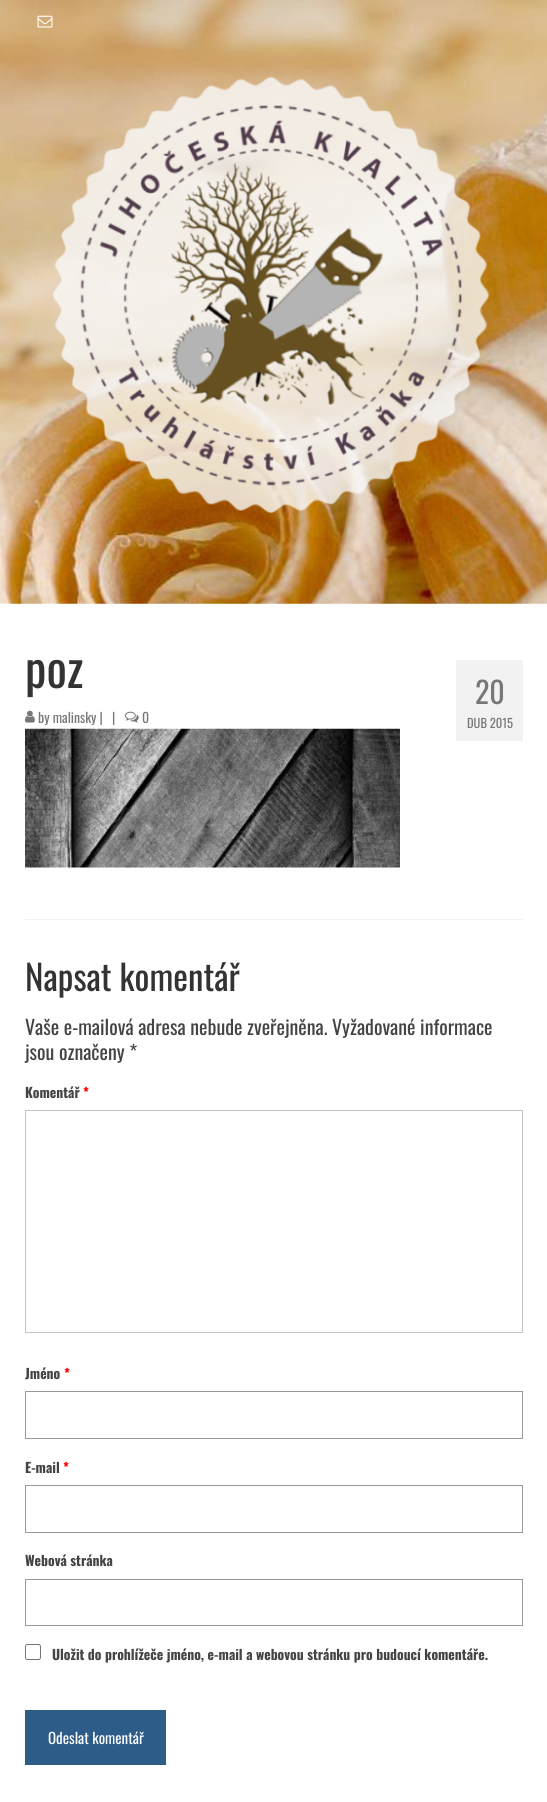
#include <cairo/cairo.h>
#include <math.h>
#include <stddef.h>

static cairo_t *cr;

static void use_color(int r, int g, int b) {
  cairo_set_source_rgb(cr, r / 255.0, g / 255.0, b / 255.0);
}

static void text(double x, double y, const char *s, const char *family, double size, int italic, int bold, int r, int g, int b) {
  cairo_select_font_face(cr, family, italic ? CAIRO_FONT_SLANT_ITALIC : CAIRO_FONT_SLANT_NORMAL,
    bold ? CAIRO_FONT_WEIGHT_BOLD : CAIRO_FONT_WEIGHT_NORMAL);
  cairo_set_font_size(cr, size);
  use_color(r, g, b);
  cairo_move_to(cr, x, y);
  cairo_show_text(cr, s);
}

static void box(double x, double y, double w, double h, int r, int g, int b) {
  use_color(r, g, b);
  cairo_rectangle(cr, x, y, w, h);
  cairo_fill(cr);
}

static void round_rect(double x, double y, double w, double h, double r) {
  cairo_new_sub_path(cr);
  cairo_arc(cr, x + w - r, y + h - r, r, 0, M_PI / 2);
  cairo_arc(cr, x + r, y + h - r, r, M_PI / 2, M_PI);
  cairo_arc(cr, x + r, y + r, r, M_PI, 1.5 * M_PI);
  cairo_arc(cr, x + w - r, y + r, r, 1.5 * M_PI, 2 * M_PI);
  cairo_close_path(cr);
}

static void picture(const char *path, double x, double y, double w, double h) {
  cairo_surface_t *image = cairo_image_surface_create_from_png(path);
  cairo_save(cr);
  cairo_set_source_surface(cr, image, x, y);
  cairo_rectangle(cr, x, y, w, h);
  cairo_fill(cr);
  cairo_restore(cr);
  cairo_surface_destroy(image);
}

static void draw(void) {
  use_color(255, 255, 255);
  cairo_paint(cr);
  picture("img_01.png", 0, 0, 547, 604);
  picture("img_02.png", 37, 15, 16, 13);
  picture("img_03.png", 52, 76, 438, 438);
  picture("img_04.png", 25, 710, 10, 13);
  picture("img_05.png", 125, 711, 14, 12);
  box(456, 660, 67, 81, 242, 242, 242);
  picture("img_06.png", 25, 728, 375, 140);
  box(25, 919, 498, 1, 242, 242, 242);
  cairo_rectangle(cr, 25.5, 1110.5, 497, 222);
  use_color(195, 195, 195);
  cairo_set_line_width(cr, 1);
  cairo_stroke(cr);
  cairo_rectangle(cr, 25.5, 1391.5, 497, 47);
  use_color(153, 153, 153);
  cairo_stroke(cr);
  cairo_rectangle(cr, 25.5, 1485.5, 497, 47);
  cairo_stroke(cr);
  cairo_rectangle(cr, 25.5, 1579.5, 497, 46);
  cairo_stroke(cr);
  round_rect(25.5, 1644.5, 15, 15, 2);
  use_color(118, 118, 118);
  cairo_stroke(cr);
  box(25, 1710, 141, 55, 45, 92, 136);
  text(25, 688, "poz", "Oswald", 48, 0, 0, 51, 51, 51);
  text(38, 723, "by malinsky |", "Oswald", 13.75, 0, 0, 119, 119, 119);
  text(112, 723, "|", "Oswald", 13.75, 0, 0, 119, 119, 119);
  text(142, 723, "0", "Oswald", 13.75, 0, 0, 119, 119, 119);
  text(475, 704, "20", "Oswald", 30, 0, 0, 119, 119, 119);
  text(467, 728, "DUB 2015", "Oswald", 12.5, 0, 0, 119, 119, 119);
  text(25, 991, "Napsat komentář", "Oswald", 35, 0, 0, 51, 51, 51);
  text(25, 1035, "Vaše e-mailová adresa nebude zveřejněna. Vyžadované informace", "Oswald", 20, 0, 0, 68, 68, 68);
  text(25, 1060, "jsou označeny *", "Oswald", 20, 0, 0, 68, 68, 68);
  text(25, 1098, "Komentář", "Oswald", 13.75, 0, 1, 68, 68, 68);
  text(83, 1098, "*", "Oswald", 13.75, 0, 1, 255, 0, 0);
  text(25, 1379, "Jméno", "Oswald", 13.75, 0, 1, 68, 68, 68);
  text(64, 1379, "*", "Oswald", 13.75, 0, 1, 255, 0, 0);
  text(25, 1473, "E-mail", "Oswald", 13.75, 0, 1, 68, 68, 68);
  text(63, 1473, "*", "Oswald", 13.75, 0, 1, 255, 0, 0);
  text(25, 1566, "Webová stránka", "Oswald", 13.75, 0, 1, 68, 68, 68);
  text(52, 1660, "Uložit do prohlížeče jméno, e-mail a webovou stránku pro budoucí komentáře.", "Oswald", 13.75, 0, 1, 68, 68, 68);
  text(48, 1744, "Odeslat komentář", "Oswald", 15, 0, 0, 255, 255, 255);
}

int main(void) {
  cairo_surface_t *surface = cairo_image_surface_create(CAIRO_FORMAT_RGB24, 547, 1802);
  cr = cairo_create(surface);
  cairo_font_options_t *options = cairo_font_options_create();
  cairo_font_options_set_hint_metrics(options, CAIRO_HINT_METRICS_OFF);
  cairo_font_options_set_hint_style(options, CAIRO_HINT_STYLE_NONE);
  cairo_set_font_options(cr, options);
  cairo_set_miter_limit(cr, 4);
  draw();
  cairo_surface_write_to_png(surface, "out.png");
  cairo_font_options_destroy(options);
  cairo_destroy(cr);
  cairo_surface_destroy(surface);
  return 0;
}
